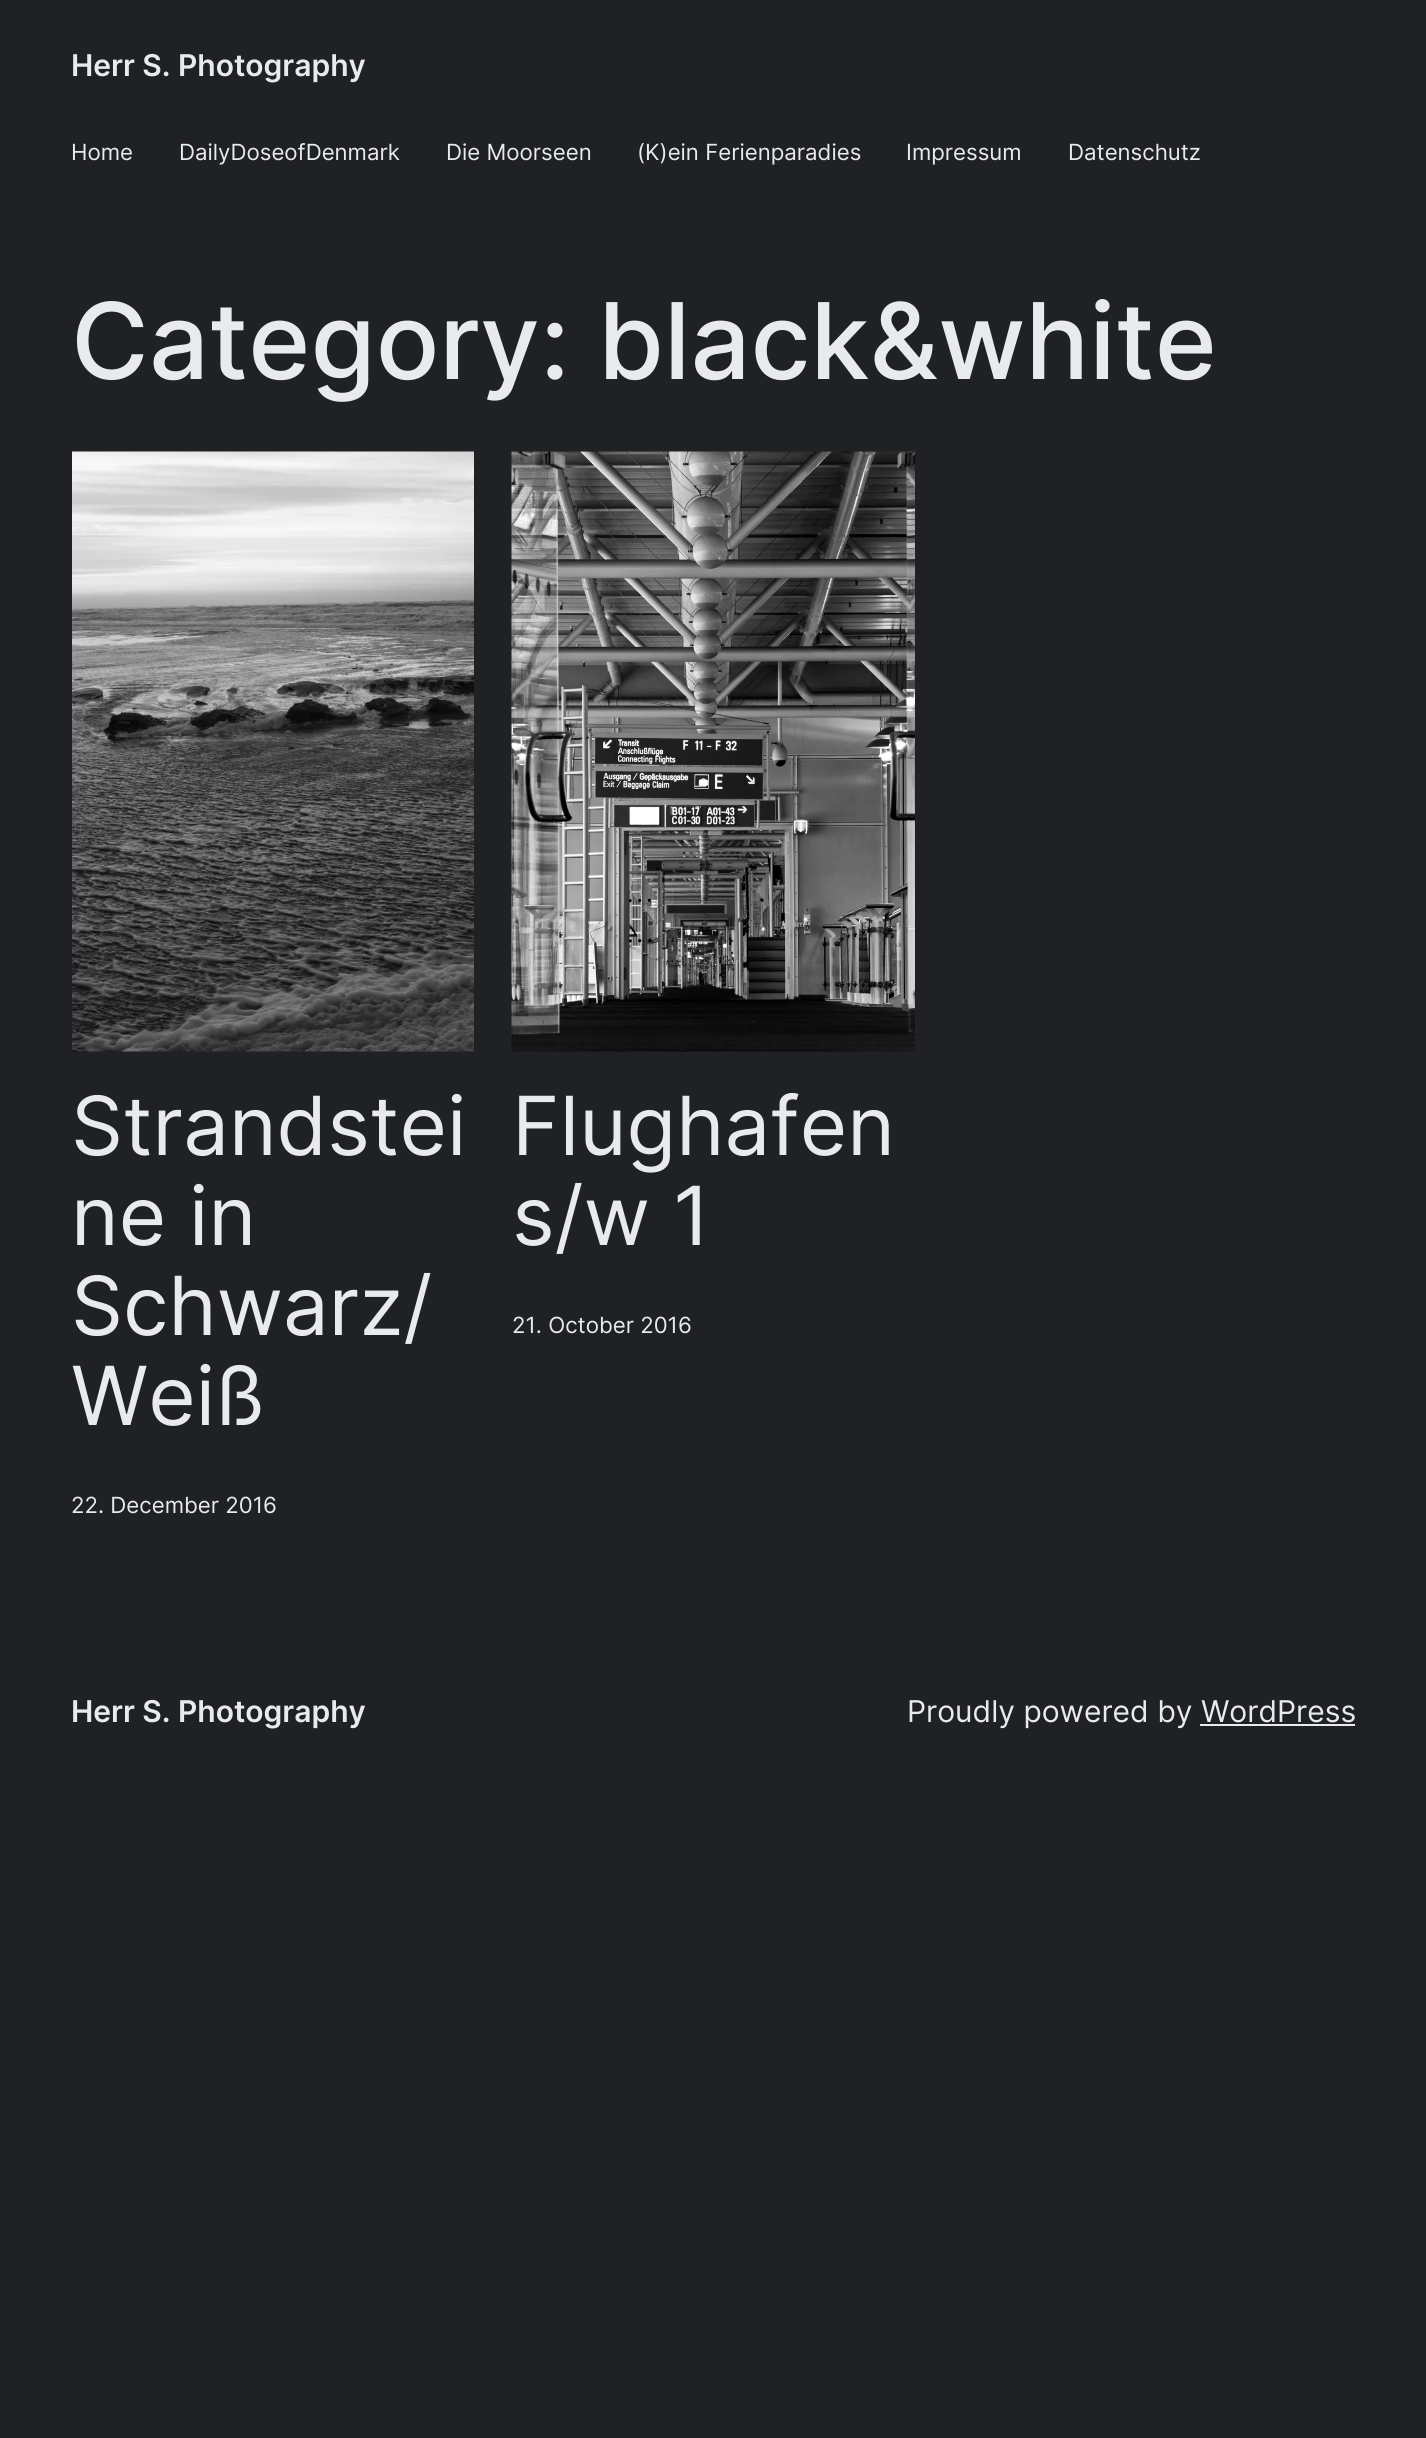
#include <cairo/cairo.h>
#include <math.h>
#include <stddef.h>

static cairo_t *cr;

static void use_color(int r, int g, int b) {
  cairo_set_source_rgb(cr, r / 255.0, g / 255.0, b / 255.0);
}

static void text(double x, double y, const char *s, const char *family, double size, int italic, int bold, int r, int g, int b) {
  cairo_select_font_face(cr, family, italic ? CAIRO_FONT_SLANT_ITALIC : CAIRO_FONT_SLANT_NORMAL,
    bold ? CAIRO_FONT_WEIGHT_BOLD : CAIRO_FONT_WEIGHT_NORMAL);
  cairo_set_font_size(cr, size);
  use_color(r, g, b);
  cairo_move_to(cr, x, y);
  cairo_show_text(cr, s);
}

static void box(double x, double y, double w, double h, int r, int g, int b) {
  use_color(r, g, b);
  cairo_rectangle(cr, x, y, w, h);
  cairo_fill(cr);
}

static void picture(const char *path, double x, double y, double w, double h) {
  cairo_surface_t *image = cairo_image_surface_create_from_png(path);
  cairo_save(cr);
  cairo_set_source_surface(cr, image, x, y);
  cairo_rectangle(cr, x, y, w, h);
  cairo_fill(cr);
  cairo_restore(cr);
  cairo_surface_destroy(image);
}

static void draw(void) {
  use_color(32, 33, 36);
  cairo_paint(cr);
  picture("img_01.png", 72, 451, 402, 601);
  picture("img_02.png", 511, 451, 404, 601);
  box(1200, 1724, 155, 2, 232, 234, 237);
  text(71, 76, "Herr S. Photography", "Inter SemiBold", 30, 0, 0, 232, 234, 237);
  text(71, 160, "Home", "Inter", 22.25, 0, 0, 232, 234, 237);
  text(179, 160, "DailyDoseofDenmark", "Inter", 22.25, 0, 0, 232, 234, 237);
  text(446, 160, "Die Moorseen", "Inter", 22.25, 0, 0, 232, 234, 237);
  text(637, 160, "(K)ein Ferienparadies", "Inter", 22.25, 0, 0, 232, 234, 237);
  text(906, 160, "Impressum", "Inter", 22.25, 0, 0, 232, 234, 237);
  text(1068, 160, "Datenschutz", "Inter", 22.25, 0, 0, 232, 234, 237);
  text(71, 379, "Category: black&white", "Inter Medium", 105.75, 0, 0, 232, 234, 237);
  text(71, 1155, "Strandstei", "Inter", 81.5, 0, 0, 232, 234, 237);
  text(71, 1245, "ne in", "Inter", 81.5, 0, 0, 232, 234, 237);
  text(71, 1335, "Schwarz/", "Inter", 81.5, 0, 0, 232, 234, 237);
  text(71, 1425, "Weiß", "Inter", 81.5, 0, 0, 232, 234, 237);
  text(71, 1513, "22. December 2016", "Inter", 22.25, 0, 0, 232, 234, 237);
  text(512, 1155, "Flughafen", "Inter", 81.5, 0, 0, 232, 234, 237);
  text(512, 1245, "s/w 1", "Inter", 81.5, 0, 0, 232, 234, 237);
  text(512, 1333, "21. October 2016", "Inter", 22.25, 0, 0, 232, 234, 237);
  text(71, 1722, "Herr S. Photography", "Inter SemiBold", 30, 0, 0, 232, 234, 237);
  text(907, 1722, "Proudly powered by WordPress", "Inter", 30, 0, 0, 232, 234, 237);
}

int main(void) {
  cairo_surface_t *surface = cairo_image_surface_create(CAIRO_FORMAT_RGB24, 1426, 2438);
  cr = cairo_create(surface);
  cairo_font_options_t *options = cairo_font_options_create();
  cairo_font_options_set_hint_metrics(options, CAIRO_HINT_METRICS_OFF);
  cairo_font_options_set_hint_style(options, CAIRO_HINT_STYLE_NONE);
  cairo_set_font_options(cr, options);
  cairo_set_miter_limit(cr, 4);
  draw();
  cairo_surface_write_to_png(surface, "out.png");
  cairo_font_options_destroy(options);
  cairo_destroy(cr);
  cairo_surface_destroy(surface);
  return 0;
}
